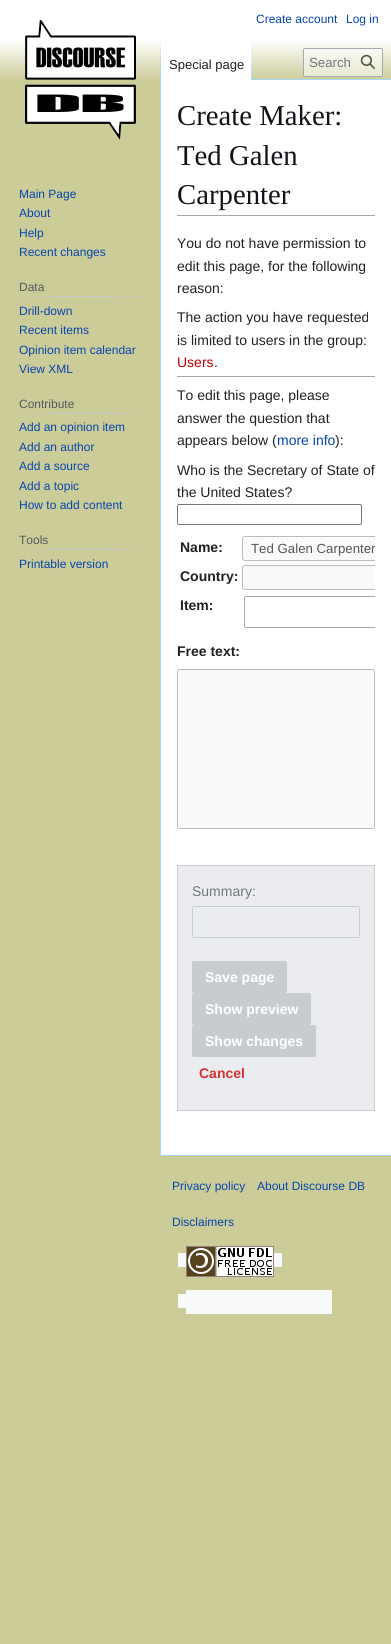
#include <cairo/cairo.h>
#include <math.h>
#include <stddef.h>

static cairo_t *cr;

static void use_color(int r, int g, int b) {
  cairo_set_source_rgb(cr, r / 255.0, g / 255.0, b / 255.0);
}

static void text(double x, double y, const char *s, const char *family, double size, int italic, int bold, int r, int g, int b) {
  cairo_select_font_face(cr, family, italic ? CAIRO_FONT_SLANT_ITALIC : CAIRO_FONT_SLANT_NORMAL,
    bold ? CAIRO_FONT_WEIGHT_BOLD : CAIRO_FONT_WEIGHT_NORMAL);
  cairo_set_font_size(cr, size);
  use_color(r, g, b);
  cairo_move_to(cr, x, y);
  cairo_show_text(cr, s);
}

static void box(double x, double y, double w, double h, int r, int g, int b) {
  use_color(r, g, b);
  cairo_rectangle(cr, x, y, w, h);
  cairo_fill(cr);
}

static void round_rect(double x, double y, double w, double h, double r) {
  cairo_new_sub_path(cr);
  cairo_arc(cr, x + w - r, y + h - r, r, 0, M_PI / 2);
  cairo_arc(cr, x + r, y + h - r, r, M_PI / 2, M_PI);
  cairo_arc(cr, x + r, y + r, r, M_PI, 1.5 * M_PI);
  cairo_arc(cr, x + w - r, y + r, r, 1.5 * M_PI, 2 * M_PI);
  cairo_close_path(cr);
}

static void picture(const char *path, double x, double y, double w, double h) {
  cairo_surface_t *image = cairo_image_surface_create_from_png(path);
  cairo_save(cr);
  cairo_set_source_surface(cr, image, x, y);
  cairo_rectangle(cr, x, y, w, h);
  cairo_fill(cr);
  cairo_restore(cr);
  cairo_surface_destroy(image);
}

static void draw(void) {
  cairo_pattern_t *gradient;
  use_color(204, 204, 153);
  cairo_paint(cr);
  gradient = cairo_pattern_create_linear(196, 0, 196, 80);
  cairo_pattern_add_color_stop_rgba(gradient, 0.5, 1, 1, 1, 1);
  cairo_pattern_add_color_stop_rgba(gradient, 1, 0.8, 0.8, 0.6, 1);
  cairo_set_source(cr, gradient);
  cairo_pattern_destroy(gradient);
  cairo_rectangle(cr, 0, 0, 391, 79);
  cairo_fill(cr);
  box(160, 1155, 231, 1, 167, 215, 249);
  box(160, 79, 1, 1077, 167, 215, 249);
  gradient = cairo_pattern_create_linear(161, 40, 161, 80);
  cairo_pattern_add_color_stop_rgba(gradient, 0, 0.655, 0.843, 0.976, 0);
  cairo_pattern_add_color_stop_rgba(gradient, 1, 0.655, 0.843, 0.976, 1);
  cairo_set_source(cr, gradient);
  cairo_pattern_destroy(gradient);
  cairo_rectangle(cr, 160, 40, 1, 40);
  cairo_fill(cr);
  box(161, 41, 90, 39, 255, 255, 255);
  gradient = cairo_pattern_create_linear(252, 40, 252, 80);
  cairo_pattern_add_color_stop_rgba(gradient, 0, 1, 1, 1, 1);
  cairo_pattern_add_color_stop_rgba(gradient, 1, 0.655, 0.843, 0.976, 1);
  cairo_set_source(cr, gradient);
  cairo_pattern_destroy(gradient);
  cairo_rectangle(cr, 251, 40, 1, 40);
  cairo_fill(cr);
  cairo_set_source_rgba(cr, 1, 1, 1, 0.5);
  round_rect(303.5, 48.5, 79, 28, 1.5);
  cairo_fill_preserve(cr);
  use_color(162, 169, 177);
  cairo_set_line_width(cr, 1);
  cairo_stroke(cr);
  picture("img_01.png", 360, 54, 15, 15);
  picture("img_02.png", 25, 20, 111, 120);
  gradient = cairo_pattern_create_linear(19, 297, 150, 297);
  cairo_pattern_add_color_stop_rgba(gradient, 0, 0.8, 0.8, 0.6, 1);
  cairo_pattern_add_color_stop_rgba(gradient, 0.33, 0.784, 0.8, 0.82, 1);
  cairo_pattern_add_color_stop_rgba(gradient, 0.66, 0.784, 0.8, 0.82, 1);
  cairo_pattern_add_color_stop_rgba(gradient, 1, 0.8, 0.8, 0.6, 1);
  cairo_set_source(cr, gradient);
  cairo_pattern_destroy(gradient);
  cairo_rectangle(cr, 19, 296, 131, 1);
  cairo_fill(cr);
  gradient = cairo_pattern_create_linear(19, 414, 150, 414);
  cairo_pattern_add_color_stop_rgba(gradient, 0, 0.8, 0.8, 0.6, 1);
  cairo_pattern_add_color_stop_rgba(gradient, 0.33, 0.784, 0.8, 0.82, 1);
  cairo_pattern_add_color_stop_rgba(gradient, 0.66, 0.784, 0.8, 0.82, 1);
  cairo_pattern_add_color_stop_rgba(gradient, 1, 0.8, 0.8, 0.6, 1);
  cairo_set_source(cr, gradient);
  cairo_pattern_destroy(gradient);
  cairo_rectangle(cr, 19, 413, 131, 1);
  cairo_fill(cr);
  gradient = cairo_pattern_create_linear(19, 550, 150, 550);
  cairo_pattern_add_color_stop_rgba(gradient, 0, 0.8, 0.8, 0.6, 1);
  cairo_pattern_add_color_stop_rgba(gradient, 0.33, 0.784, 0.8, 0.82, 1);
  cairo_pattern_add_color_stop_rgba(gradient, 0.66, 0.784, 0.8, 0.82, 1);
  cairo_pattern_add_color_stop_rgba(gradient, 1, 0.8, 0.8, 0.6, 1);
  cairo_set_source(cr, gradient);
  cairo_pattern_destroy(gradient);
  cairo_rectangle(cr, 19, 549, 131, 1);
  cairo_fill(cr);
  box(161, 80, 230, 1075, 255, 255, 255);
  box(252, 79, 139, 1, 167, 215, 249);
  box(177, 215, 198, 1, 162, 169, 177);
  box(177, 376, 198, 1, 162, 169, 177);
  round_rect(177.5, 504.5, 184, 20, 1.5);
  use_color(118, 118, 118);
  cairo_stroke(cr);
  use_color(250, 250, 250);
  cairo_new_path(cr);
  cairo_move_to(cr, 245, 536);
  cairo_line_to(cr, 375, 536);
  cairo_line_to(cr, 375, 561);
  cairo_line_to(cr, 245, 561);
  cairo_curve_to(cr, 243.5, 561, 242, 559.5, 242, 558);
  cairo_line_to(cr, 242, 539);
  cairo_curve_to(cr, 242, 537.5, 243.5, 536, 245, 536);
  cairo_close_path(cr);
  cairo_fill(cr);
  cairo_save(cr);
  cairo_rectangle(cr, 177, 533, 198, 100);
  cairo_clip(cr);
  round_rect(242.5, 536.5, 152, 24, 2.5);
  use_color(187, 187, 187);
  cairo_stroke(cr);
  cairo_restore(cr);
  cairo_new_path(cr);
  cairo_move_to(cr, 245, 565);
  cairo_line_to(cr, 375, 565);
  cairo_line_to(cr, 375, 590);
  cairo_line_to(cr, 245, 590);
  cairo_curve_to(cr, 243.5, 590, 242, 588.5, 242, 587);
  cairo_line_to(cr, 242, 568);
  cairo_curve_to(cr, 242, 566.5, 243.5, 565, 245, 565);
  cairo_close_path(cr);
  cairo_fill(cr);
  cairo_save(cr);
  cairo_rectangle(cr, 177, 533, 198, 100);
  cairo_clip(cr);
  round_rect(242.5, 565.5, 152, 24, 2.5);
  use_color(187, 187, 187);
  cairo_stroke(cr);
  cairo_restore(cr);
  box(245, 596, 130, 1, 162, 169, 177);
  box(245, 627, 130, 1, 162, 169, 177);
  box(244, 597, 1, 30, 162, 169, 177);
  use_color(250, 250, 250);
  round_rect(177.5, 669.5, 197, 159, 2.5);
  cairo_fill_preserve(cr);
  use_color(187, 187, 187);
  cairo_stroke(cr);
  use_color(234, 236, 240);
  cairo_rectangle(cr, 177.5, 865.5, 197, 245);
  cairo_fill_preserve(cr);
  use_color(200, 204, 209);
  cairo_stroke(cr);
  round_rect(192.5, 906.5, 167, 31, 1.5);
  cairo_stroke(cr);
  round_rect(192.5, 961.5, 94, 31, 1.5);
  cairo_fill_preserve(cr);
  cairo_stroke(cr);
  round_rect(192.5, 993.5, 118, 31, 1.5);
  cairo_fill_preserve(cr);
  cairo_stroke(cr);
  round_rect(192.5, 1025.5, 123, 31, 1.5);
  cairo_fill_preserve(cr);
  cairo_stroke(cr);
  box(178, 1253, 104, 14, 248, 249, 250);
  picture("img_03.png", 186, 1246, 88, 31);
  box(178, 1294, 8, 14, 248, 249, 250);
  box(186, 1290, 146, 24, 248, 249, 250);
  text(256, 23, "Create account", "Liberation Sans", 12, 0, 0, 6, 69, 173);
  text(346, 23, "Log in", "Liberation Sans", 12, 0, 0, 6, 69, 173);
  text(169, 69, "Special page", "Liberation Sans", 13, 0, 0, 32, 33, 34);
  text(309, 67, "Search", "Liberation Sans", 13.25, 0, 0, 114, 119, 125);
  text(19, 198, "Main Page", "Liberation Sans", 12, 0, 0, 6, 69, 173);
  text(19, 217, "About", "Liberation Sans", 12, 0, 0, 6, 69, 173);
  text(19, 237, "Help", "Liberation Sans", 12, 0, 0, 6, 69, 173);
  text(19, 256, "Recent changes", "Liberation Sans", 12, 0, 0, 6, 69, 173);
  text(19, 291, "Data", "Liberation Sans", 12, 0, 0, 84, 89, 93);
  text(19, 315, "Drill-down", "Liberation Sans", 12, 0, 0, 6, 69, 173);
  text(19, 334, "Recent items", "Liberation Sans", 12, 0, 0, 6, 69, 173);
  text(19, 354, "Opinion item calendar", "Liberation Sans", 12, 0, 0, 6, 69, 173);
  text(19, 373, "View XML", "Liberation Sans", 12, 0, 0, 6, 69, 173);
  text(19, 408, "Contribute", "Liberation Sans", 12, 0, 0, 84, 89, 93);
  text(19, 431, "Add an opinion item", "Liberation Sans", 12, 0, 0, 6, 69, 173);
  text(19, 451, "Add an author", "Liberation Sans", 12, 0, 0, 6, 69, 173);
  text(19, 470, "Add a source", "Liberation Sans", 12, 0, 0, 6, 69, 173);
  text(19, 490, "Add a topic", "Liberation Sans", 12, 0, 0, 6, 69, 173);
  text(19, 509, "How to add content", "Liberation Sans", 12, 0, 0, 6, 69, 173);
  text(19, 544, "Tools", "Liberation Sans", 12, 0, 0, 84, 89, 93);
  text(19, 568, "Printable version", "Liberation Sans", 12, 0, 0, 6, 69, 173);
  text(177, 125, "Create Maker:", "Liberation Serif", 28.75, 0, 0, 16, 20, 24);
  text(177, 165, "Ted Galen", "Liberation Serif", 28.75, 0, 0, 16, 20, 24);
  text(177, 204, "Carpenter", "Liberation Serif", 28.75, 0, 0, 16, 20, 24);
  text(177, 248, "You do not have permission to", "Liberation Sans", 14, 0, 0, 32, 33, 34);
  text(177, 271, "edit this page, for the following", "Liberation Sans", 14, 0, 0, 32, 33, 34);
  text(177, 293, "reason:", "Liberation Sans", 14, 0, 0, 32, 33, 34);
  text(177, 322, "The action you have requested", "Liberation Sans", 14, 0, 0, 32, 33, 34);
  text(177, 345, "is limited to users in the group:", "Liberation Sans", 14, 0, 0, 32, 33, 34);
  text(177, 367, "Users", "Liberation Sans", 14, 0, 0, 186, 0, 0);
  text(214, 367, ".", "Liberation Sans", 14, 0, 0, 32, 33, 34);
  text(177, 400, "To edit this page, please", "Liberation Sans", 14, 0, 0, 32, 33, 34);
  text(177, 423, "answer the question that", "Liberation Sans", 14, 0, 0, 32, 33, 34);
  text(177, 445, "appears below (", "Liberation Sans", 14, 0, 0, 32, 33, 34);
  text(277, 445, "more info", "Liberation Sans", 14, 0, 0, 6, 69, 173);
  text(335, 445, "):", "Liberation Sans", 14, 0, 0, 32, 33, 34);
  text(177, 475, "Who is the Secretary of State of", "Liberation Sans", 14, 0, 0, 32, 33, 34);
  text(177, 497, "the United States?", "Liberation Sans", 14, 0, 0, 32, 33, 34);
  text(180, 552, "Name:", "Liberation Sans", 14, 0, 1, 32, 33, 34);
  cairo_save(cr);
  cairo_rectangle(cr, 251, 541, 124, 15);
  cairo_clip(cr);
  text(251, 553, "Ted Galen Carpenter", "Liberation Sans", 13.25, 0, 0, 84, 84, 84);
  cairo_restore(cr);
  text(180, 581, "Country:", "Liberation Sans", 14, 0, 1, 32, 33, 34);
  text(180, 610, "Item:", "Liberation Sans", 14, 0, 1, 32, 33, 34);
  text(177, 656, "Free text:", "Liberation Sans", 14, 0, 1, 32, 33, 34);
  text(192, 896, "Summary:", "Liberation Sans", 14, 0, 0, 114, 119, 125);
  text(205, 982, "Save page", "Liberation Sans", 14, 0, 1, 255, 255, 255);
  text(205, 1014, "Show preview", "Liberation Sans", 14, 0, 1, 255, 255, 255);
  text(205, 1046, "Show changes", "Liberation Sans", 14, 0, 1, 255, 255, 255);
  text(199, 1078, "Cancel", "Liberation Sans", 14, 0, 1, 215, 51, 51);
  text(172, 1190, "Privacy policy", "Liberation Sans", 12, 0, 0, 6, 69, 173);
  text(257, 1190, "About Discourse DB", "Liberation Sans", 12, 0, 0, 6, 69, 173);
  text(172, 1226, "Disclaimers", "Liberation Sans", 12, 0, 0, 6, 69, 173);
}

int main(void) {
  cairo_surface_t *surface = cairo_image_surface_create(CAIRO_FORMAT_RGB24, 391, 1644);
  cr = cairo_create(surface);
  cairo_font_options_t *options = cairo_font_options_create();
  cairo_font_options_set_hint_metrics(options, CAIRO_HINT_METRICS_OFF);
  cairo_font_options_set_hint_style(options, CAIRO_HINT_STYLE_NONE);
  cairo_set_font_options(cr, options);
  cairo_set_miter_limit(cr, 4);
  draw();
  cairo_surface_write_to_png(surface, "out.png");
  cairo_font_options_destroy(options);
  cairo_destroy(cr);
  cairo_surface_destroy(surface);
  return 0;
}
